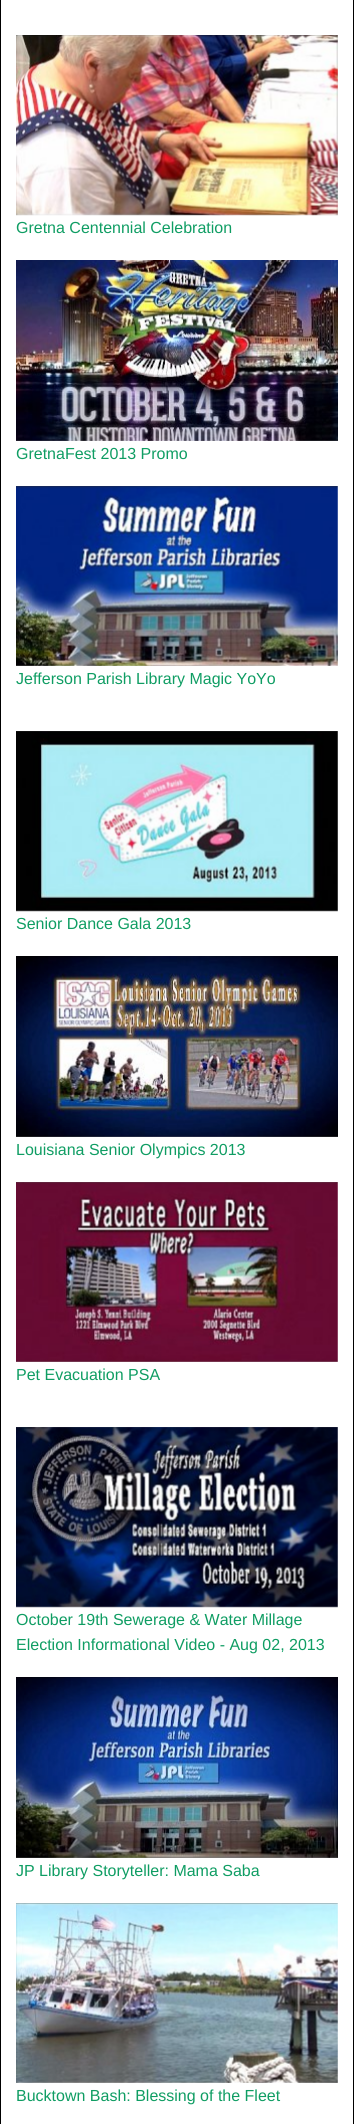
#include <cairo/cairo.h>
#include <math.h>
#include <stddef.h>

static cairo_t *cr;

static void use_color(int r, int g, int b) {
  cairo_set_source_rgb(cr, r / 255.0, g / 255.0, b / 255.0);
}

static void text(double x, double y, const char *s, const char *family, double size, int italic, int bold, int r, int g, int b) {
  cairo_select_font_face(cr, family, italic ? CAIRO_FONT_SLANT_ITALIC : CAIRO_FONT_SLANT_NORMAL,
    bold ? CAIRO_FONT_WEIGHT_BOLD : CAIRO_FONT_WEIGHT_NORMAL);
  cairo_set_font_size(cr, size);
  use_color(r, g, b);
  cairo_move_to(cr, x, y);
  cairo_show_text(cr, s);
}

static void box(double x, double y, double w, double h, int r, int g, int b) {
  use_color(r, g, b);
  cairo_rectangle(cr, x, y, w, h);
  cairo_fill(cr);
}

static void picture(const char *path, double x, double y, double w, double h) {
  cairo_surface_t *image = cairo_image_surface_create_from_png(path);
  cairo_save(cr);
  cairo_set_source_surface(cr, image, x, y);
  cairo_rectangle(cr, x, y, w, h);
  cairo_fill(cr);
  cairo_restore(cr);
  cairo_surface_destroy(image);
}

static void draw(void) {
  use_color(255, 255, 255);
  cairo_paint(cr);
  box(353, 0, 1, 2124, 0, 0, 0);
  box(0, 0, 1, 2124, 0, 0, 0);
  picture("img_01.png", 16, 35, 322, 181);
  picture("img_02.png", 16, 260, 322, 181);
  picture("img_03.png", 16, 486, 322, 180);
  picture("img_04.png", 16, 731, 322, 181);
  picture("img_05.png", 16, 956, 322, 181);
  picture("img_06.png", 16, 1182, 322, 180);
  picture("img_07.png", 16, 1427, 322, 181);
  picture("img_08.png", 16, 1677, 322, 181);
  picture("img_09.png", 16, 1903, 322, 180);
  text(16, 233, "Gretna Centennial Celebration", "Liberation Sans", 16, 0, 0, 15, 157, 99);
  text(16, 459, "GretnaFest 2013 Promo", "Liberation Sans", 16, 0, 0, 15, 157, 99);
  text(16, 684, "Jefferson Parish Library Magic YoYo", "Liberation Sans", 16, 0, 0, 15, 157, 99);
  text(16, 929, "Senior Dance Gala 2013", "Liberation Sans", 16, 0, 0, 15, 157, 99);
  text(16, 1155, "Louisiana Senior Olympics 2013", "Liberation Sans", 16, 0, 0, 15, 157, 99);
  text(16, 1380, "Pet Evacuation PSA", "Liberation Sans", 16, 0, 0, 15, 157, 99);
  text(16, 1625, "October 19th Sewerage & Water Millage", "Liberation Sans", 16, 0, 0, 15, 157, 99);
  text(16, 1650, "Election Informational Video - Aug 02, 2013", "Liberation Sans", 16, 0, 0, 15, 157, 99);
  text(16, 1876, "JP Library Storyteller: Mama Saba", "Liberation Sans", 16, 0, 0, 15, 157, 99);
  text(16, 2101, "Bucktown Bash: Blessing of the Fleet", "Liberation Sans", 16, 0, 0, 15, 157, 99);
}

int main(void) {
  cairo_surface_t *surface = cairo_image_surface_create(CAIRO_FORMAT_RGB24, 354, 2124);
  cr = cairo_create(surface);
  cairo_font_options_t *options = cairo_font_options_create();
  cairo_font_options_set_hint_metrics(options, CAIRO_HINT_METRICS_OFF);
  cairo_font_options_set_hint_style(options, CAIRO_HINT_STYLE_NONE);
  cairo_set_font_options(cr, options);
  cairo_set_miter_limit(cr, 4);
  draw();
  cairo_surface_write_to_png(surface, "out.png");
  cairo_font_options_destroy(options);
  cairo_destroy(cr);
  cairo_surface_destroy(surface);
  return 0;
}
